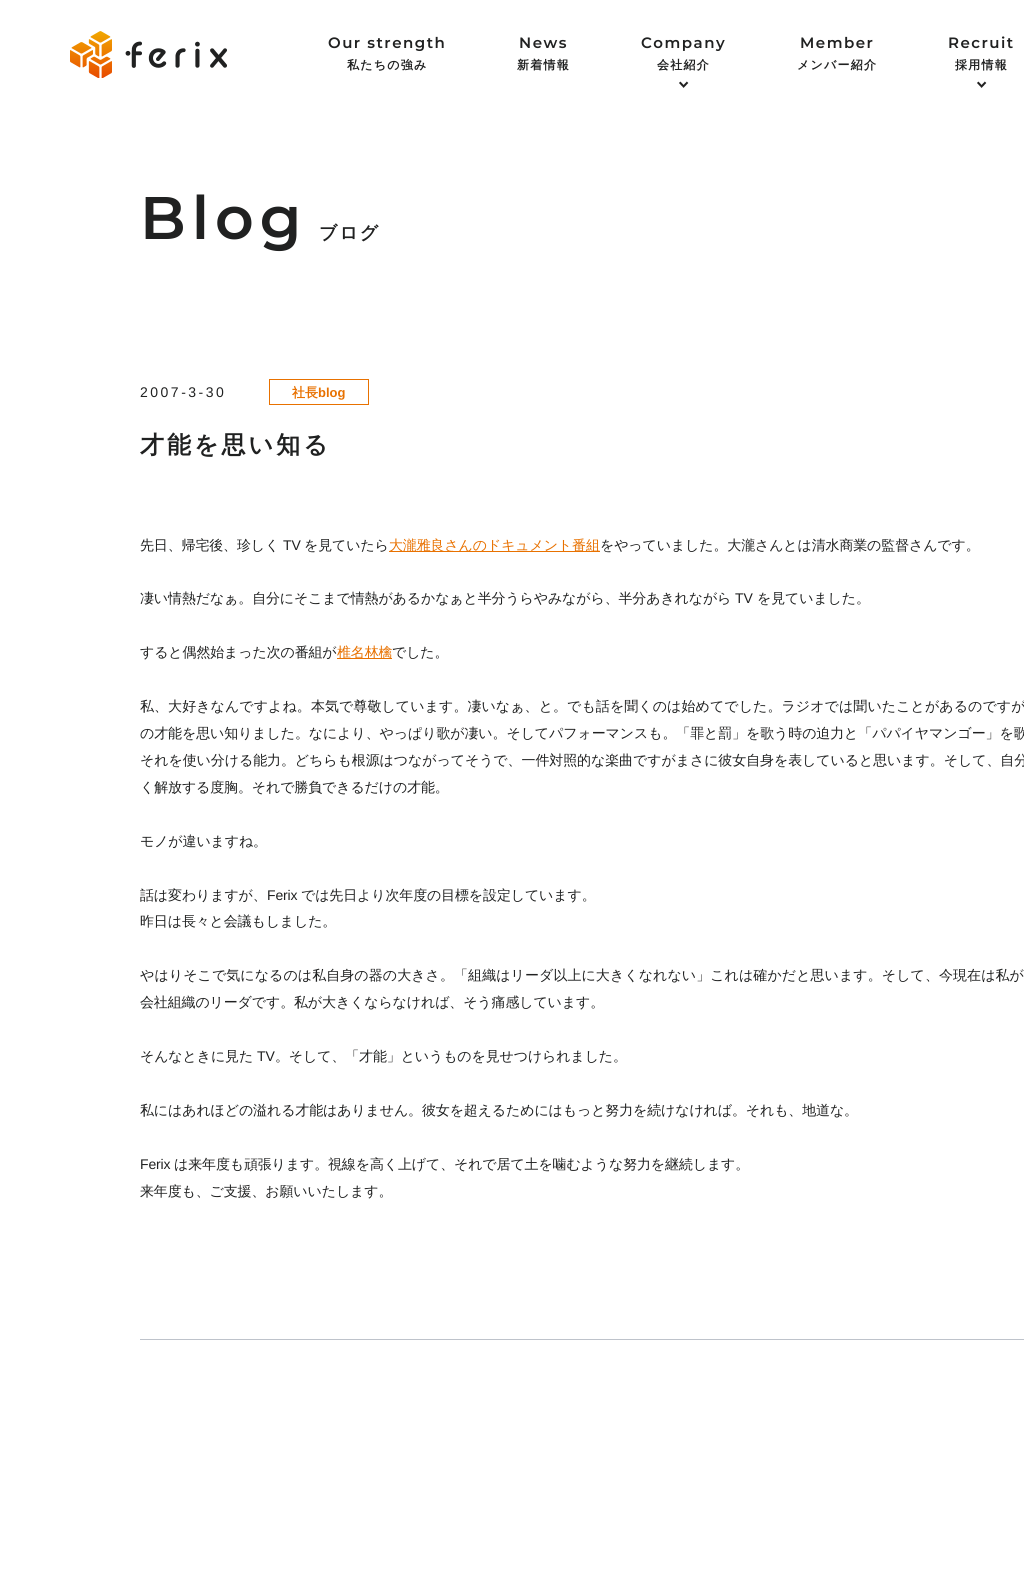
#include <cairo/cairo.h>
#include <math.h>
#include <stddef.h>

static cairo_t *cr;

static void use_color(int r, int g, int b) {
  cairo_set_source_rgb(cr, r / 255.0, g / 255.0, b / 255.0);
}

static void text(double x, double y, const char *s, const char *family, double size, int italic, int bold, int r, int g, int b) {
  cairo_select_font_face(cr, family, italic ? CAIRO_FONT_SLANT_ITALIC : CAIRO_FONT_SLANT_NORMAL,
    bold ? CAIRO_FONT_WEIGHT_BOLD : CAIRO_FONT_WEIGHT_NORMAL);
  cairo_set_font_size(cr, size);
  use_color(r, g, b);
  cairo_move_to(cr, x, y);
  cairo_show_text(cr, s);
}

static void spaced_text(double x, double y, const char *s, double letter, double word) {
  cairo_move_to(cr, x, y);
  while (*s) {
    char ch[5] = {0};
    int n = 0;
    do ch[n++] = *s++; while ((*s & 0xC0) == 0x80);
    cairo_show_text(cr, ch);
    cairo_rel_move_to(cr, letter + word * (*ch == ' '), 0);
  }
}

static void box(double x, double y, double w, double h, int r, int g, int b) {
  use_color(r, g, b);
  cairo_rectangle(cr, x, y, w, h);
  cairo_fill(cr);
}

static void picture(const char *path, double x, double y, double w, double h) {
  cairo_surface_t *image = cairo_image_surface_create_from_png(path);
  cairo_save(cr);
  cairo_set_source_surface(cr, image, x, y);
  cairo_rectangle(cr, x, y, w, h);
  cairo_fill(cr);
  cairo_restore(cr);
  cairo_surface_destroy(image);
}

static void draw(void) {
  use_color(255, 255, 255);
  cairo_paint(cr);
  picture("img_01.png", 70, 31, 157, 47);
  picture("img_02.png", 679, 81, 10, 7);
  picture("img_02.png", 977, 81, 10, 7);
  box(140, 1339, 884, 1, 190, 195, 203);
  cairo_rectangle(cr, 269.5, 379.5, 99, 25);
  use_color(232, 113, 0);
  cairo_set_line_width(cr, 1);
  cairo_stroke(cr);
  box(389, 551, 211, 1, 232, 113, 0);
  box(337, 658, 55, 1, 232, 113, 0);
  cairo_select_font_face(cr, "Montserrat Thin", CAIRO_FONT_SLANT_NORMAL, CAIRO_FONT_WEIGHT_NORMAL);
  cairo_set_font_size(cr, 15);
  use_color(32, 33, 33);
  spaced_text(328, 48, "Our strength", 1.5, 0);
  cairo_select_font_face(cr, "WenQuanYi Zen Hei", CAIRO_FONT_SLANT_NORMAL, CAIRO_FONT_WEIGHT_BOLD);
  cairo_set_font_size(cr, 12);
  spaced_text(347, 69, "私たちの強み", 1.25, 0);
  cairo_select_font_face(cr, "Montserrat Thin", CAIRO_FONT_SLANT_NORMAL, CAIRO_FONT_WEIGHT_NORMAL);
  cairo_set_font_size(cr, 15);
  spaced_text(519, 48, "News", 1.5, 0);
  cairo_select_font_face(cr, "WenQuanYi Zen Hei", CAIRO_FONT_SLANT_NORMAL, CAIRO_FONT_WEIGHT_BOLD);
  cairo_set_font_size(cr, 12);
  spaced_text(517, 69, "新着情報", 1.25, 0);
  cairo_select_font_face(cr, "Montserrat Thin", CAIRO_FONT_SLANT_NORMAL, CAIRO_FONT_WEIGHT_NORMAL);
  cairo_set_font_size(cr, 15);
  spaced_text(641, 48, "Company", 1.5, 0);
  cairo_select_font_face(cr, "WenQuanYi Zen Hei", CAIRO_FONT_SLANT_NORMAL, CAIRO_FONT_WEIGHT_BOLD);
  cairo_set_font_size(cr, 12);
  spaced_text(657, 69, "会社紹介", 1.25, 0);
  cairo_select_font_face(cr, "Montserrat Thin", CAIRO_FONT_SLANT_NORMAL, CAIRO_FONT_WEIGHT_NORMAL);
  cairo_set_font_size(cr, 15);
  spaced_text(800, 48, "Member", 1.5, 0);
  cairo_select_font_face(cr, "WenQuanYi Zen Hei", CAIRO_FONT_SLANT_NORMAL, CAIRO_FONT_WEIGHT_BOLD);
  cairo_set_font_size(cr, 12);
  spaced_text(797, 69, "メンバー紹介", 1.25, 0);
  cairo_select_font_face(cr, "Montserrat Thin", CAIRO_FONT_SLANT_NORMAL, CAIRO_FONT_WEIGHT_NORMAL);
  cairo_set_font_size(cr, 15);
  spaced_text(948, 48, "Recruit", 1.5, 0);
  cairo_select_font_face(cr, "WenQuanYi Zen Hei", CAIRO_FONT_SLANT_NORMAL, CAIRO_FONT_WEIGHT_BOLD);
  cairo_set_font_size(cr, 12);
  spaced_text(955, 69, "採用情報", 1.25, 0);
  cairo_select_font_face(cr, "Montserrat Thin", CAIRO_FONT_SLANT_NORMAL, CAIRO_FONT_WEIGHT_NORMAL);
  cairo_set_font_size(cr, 60);
  spaced_text(140, 239, "Blog", 6, 0);
  cairo_select_font_face(cr, "WenQuanYi Zen Hei", CAIRO_FONT_SLANT_NORMAL, CAIRO_FONT_WEIGHT_BOLD);
  cairo_set_font_size(cr, 18);
  spaced_text(319, 239, "ブログ", 2, 0);
  cairo_select_font_face(cr, "Liberation Sans", CAIRO_FONT_SLANT_NORMAL, CAIRO_FONT_WEIGHT_NORMAL);
  cairo_set_font_size(cr, 14);
  spaced_text(140, 397, "2007-3-30", 2.5, 0);
  text(292, 397, "社長", "WenQuanYi Zen Hei", 13, 0, 1, 232, 113, 0);
  text(318, 397, "blog", "Liberation Sans", 13, 0, 1, 232, 113, 0);
  cairo_select_font_face(cr, "WenQuanYi Zen Hei", CAIRO_FONT_SLANT_NORMAL, CAIRO_FONT_WEIGHT_BOLD);
  cairo_set_font_size(cr, 24);
  use_color(32, 33, 33);
  spaced_text(140, 453, "才能を思い知る", 3, 0);
  cairo_select_font_face(cr, "WenQuanYi Zen Hei Medium", CAIRO_FONT_SLANT_NORMAL, CAIRO_FONT_WEIGHT_NORMAL);
  cairo_set_font_size(cr, 14);
  spaced_text(140, 550, "先日、帰宅後、珍しく", -0.15, 0);
  cairo_select_font_face(cr, "Liberation Sans", CAIRO_FONT_SLANT_NORMAL, CAIRO_FONT_WEIGHT_NORMAL);
  spaced_text(283, 550, "TV", -0.15, 0);
  cairo_select_font_face(cr, "WenQuanYi Zen Hei Medium", CAIRO_FONT_SLANT_NORMAL, CAIRO_FONT_WEIGHT_NORMAL);
  spaced_text(304, 550, "を見ていたら", -0.15, 0);
  use_color(232, 113, 0);
  spaced_text(389, 550, "大瀧雅良さんのドキュメント番組", -0.15, 0);
  use_color(32, 33, 33);
  spaced_text(600, 550, "をやっていました。大瀧さんとは清水商業の監督さんです。", -0.15, 0);
  spaced_text(140, 603, "凄い情熱だなぁ。自分にそこまで情熱があるかなぁと半分うらやみながら、半分あきれながら", -0.15, 0);
  cairo_select_font_face(cr, "Liberation Sans", CAIRO_FONT_SLANT_NORMAL, CAIRO_FONT_WEIGHT_NORMAL);
  spaced_text(735, 603, "TV", -0.15, 0);
  cairo_select_font_face(cr, "WenQuanYi Zen Hei Medium", CAIRO_FONT_SLANT_NORMAL, CAIRO_FONT_WEIGHT_NORMAL);
  spaced_text(757, 603, "を見ていました。", -0.15, 0);
  spaced_text(140, 657, "すると偶然始まった次の番組が", -0.15, 0);
  use_color(232, 113, 0);
  spaced_text(337, 657, "椎名林檎", -0.15, 0);
  use_color(32, 33, 33);
  spaced_text(392, 657, "でした。", -0.15, 0);
  spaced_text(140, 711, "私、大好きなんですよね。本気で尊敬しています。凄いなぁ、と。でも話を聞くのは始めてでした。ラジオでは聞いたことがあるのですが", 0.05, 0);
  spaced_text(140, 738, "の才能を思い知りました。なにより、やっぱり歌が凄い。そしてパフォーマンスも。「罪と罰」を歌う時の迫力と「パパイヤマンゴー」を歌", -0.12, 0);
  spaced_text(140, 765, "それを使い分ける能力。どちらも根源はつながってそうで、一件対照的な楽曲ですがまさに彼女自身を表していると思います。そして、自分", -0.1, 0);
  spaced_text(140, 792, "く解放する度胸。それで勝負できるだけの才能。", -0.15, 0);
  spaced_text(140, 846, "モノが違いますね。", -0.15, 0);
  spaced_text(140, 900, "話は変わりますが、", -0.15, 0);
  cairo_select_font_face(cr, "Liberation Sans", CAIRO_FONT_SLANT_NORMAL, CAIRO_FONT_WEIGHT_NORMAL);
  spaced_text(267, 900, "Ferix", -0.15, 0);
  cairo_select_font_face(cr, "WenQuanYi Zen Hei Medium", CAIRO_FONT_SLANT_NORMAL, CAIRO_FONT_WEIGHT_NORMAL);
  spaced_text(301, 900, "では先日より次年度の目標を設定しています。", -0.15, 0);
  spaced_text(140, 926, "昨日は長々と会議もしました。", -0.15, 0);
  spaced_text(140, 980, "やはりそこで気になるのは私自身の器の大きさ。「組織はリーダ以上に大きくなれない」これは確かだと思います。そして、今現在は私が", 0.05, 0);
  spaced_text(140, 1007, "会社組織のリーダです。私が大きくならなければ、そう痛感しています。", -0.15, 0);
  spaced_text(140, 1061, "そんなときに見た", -0.15, 0);
  cairo_select_font_face(cr, "Liberation Sans", CAIRO_FONT_SLANT_NORMAL, CAIRO_FONT_WEIGHT_NORMAL);
  spaced_text(257, 1061, "TV", -0.15, 0);
  cairo_select_font_face(cr, "WenQuanYi Zen Hei Medium", CAIRO_FONT_SLANT_NORMAL, CAIRO_FONT_WEIGHT_NORMAL);
  spaced_text(275, 1061, "。そして、「才能」というものを見せつけられました。", -0.15, 0);
  spaced_text(140, 1115, "私にはあれほどの溢れる才能はありません。彼女を超えるためにはもっと努力を続けなければ。それも、地道な。", -0.15, 0);
  cairo_select_font_face(cr, "Liberation Sans", CAIRO_FONT_SLANT_NORMAL, CAIRO_FONT_WEIGHT_NORMAL);
  spaced_text(140, 1169, "Ferix", -0.15, 0);
  cairo_select_font_face(cr, "WenQuanYi Zen Hei Medium", CAIRO_FONT_SLANT_NORMAL, CAIRO_FONT_WEIGHT_NORMAL);
  spaced_text(174, 1169, "は来年度も頑張ります。視線を高く上げて、それで居て土を噛むような努力を継続します。", -0.15, 0);
  spaced_text(140, 1196, "来年度も、ご支援、お願いいたします。", -0.15, 0);
}

int main(void) {
  cairo_surface_t *surface = cairo_image_surface_create(CAIRO_FORMAT_RGB24, 1024, 1584);
  cr = cairo_create(surface);
  cairo_font_options_t *options = cairo_font_options_create();
  cairo_font_options_set_hint_metrics(options, CAIRO_HINT_METRICS_OFF);
  cairo_font_options_set_hint_style(options, CAIRO_HINT_STYLE_NONE);
  cairo_set_font_options(cr, options);
  cairo_set_miter_limit(cr, 4);
  draw();
  cairo_surface_write_to_png(surface, "out.png");
  cairo_font_options_destroy(options);
  cairo_destroy(cr);
  cairo_surface_destroy(surface);
  return 0;
}
